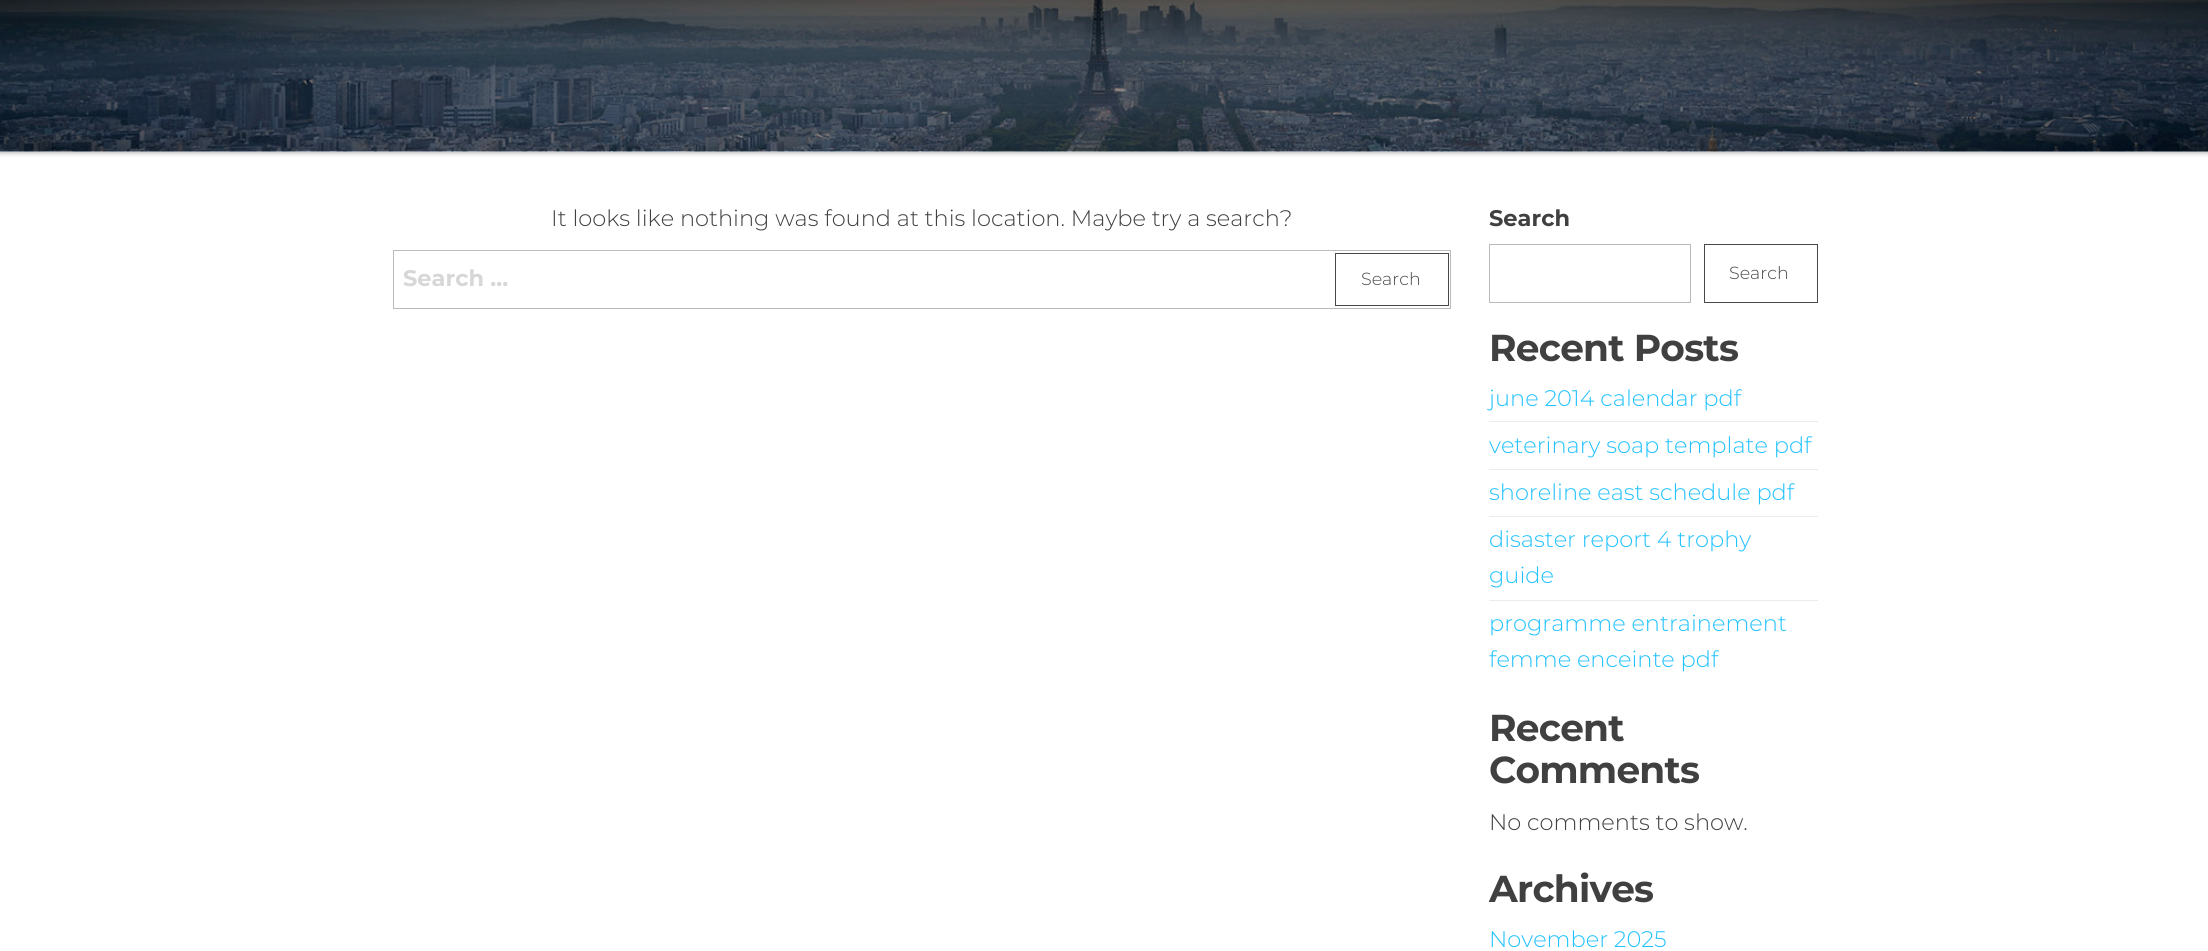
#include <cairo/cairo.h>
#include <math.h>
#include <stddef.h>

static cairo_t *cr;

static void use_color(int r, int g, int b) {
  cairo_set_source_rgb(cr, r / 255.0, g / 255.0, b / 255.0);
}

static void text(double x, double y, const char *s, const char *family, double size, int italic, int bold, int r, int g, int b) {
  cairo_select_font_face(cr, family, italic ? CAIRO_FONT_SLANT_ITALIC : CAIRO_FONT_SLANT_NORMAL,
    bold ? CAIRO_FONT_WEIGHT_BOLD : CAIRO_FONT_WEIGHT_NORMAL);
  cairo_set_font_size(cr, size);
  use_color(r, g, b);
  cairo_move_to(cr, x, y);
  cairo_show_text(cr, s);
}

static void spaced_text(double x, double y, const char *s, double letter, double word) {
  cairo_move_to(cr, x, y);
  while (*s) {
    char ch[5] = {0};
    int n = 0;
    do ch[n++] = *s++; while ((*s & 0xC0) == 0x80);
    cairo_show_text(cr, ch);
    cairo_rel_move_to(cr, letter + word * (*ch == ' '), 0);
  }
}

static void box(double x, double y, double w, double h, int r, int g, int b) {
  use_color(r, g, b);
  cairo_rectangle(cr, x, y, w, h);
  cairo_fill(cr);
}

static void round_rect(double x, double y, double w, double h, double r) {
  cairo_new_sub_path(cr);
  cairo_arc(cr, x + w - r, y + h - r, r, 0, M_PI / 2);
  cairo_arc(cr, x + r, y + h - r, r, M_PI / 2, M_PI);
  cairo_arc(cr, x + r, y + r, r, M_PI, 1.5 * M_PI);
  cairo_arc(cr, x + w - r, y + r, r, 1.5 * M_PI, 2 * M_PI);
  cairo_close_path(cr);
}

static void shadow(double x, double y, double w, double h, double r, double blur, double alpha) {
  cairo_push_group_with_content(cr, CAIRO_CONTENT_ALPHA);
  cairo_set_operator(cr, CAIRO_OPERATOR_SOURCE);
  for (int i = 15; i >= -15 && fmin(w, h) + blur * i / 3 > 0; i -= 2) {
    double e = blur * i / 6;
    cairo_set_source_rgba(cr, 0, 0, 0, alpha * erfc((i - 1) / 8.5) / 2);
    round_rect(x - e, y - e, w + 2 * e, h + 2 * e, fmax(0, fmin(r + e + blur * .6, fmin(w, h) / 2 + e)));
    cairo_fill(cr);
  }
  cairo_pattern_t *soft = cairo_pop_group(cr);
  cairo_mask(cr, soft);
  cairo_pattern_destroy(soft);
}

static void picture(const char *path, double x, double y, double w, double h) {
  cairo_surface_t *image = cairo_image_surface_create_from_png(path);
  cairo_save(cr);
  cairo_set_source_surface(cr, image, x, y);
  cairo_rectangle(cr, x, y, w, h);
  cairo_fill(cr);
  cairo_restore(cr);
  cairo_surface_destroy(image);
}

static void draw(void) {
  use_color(255, 255, 255);
  cairo_paint(cr);
  use_color(0, 0, 0);
  shadow(0, -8, 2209, 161, 0, 2.5, 0.3);
  picture("img_01.png", 0, 0, 2208, 152);
  cairo_rectangle(cr, 393.5, 250.5, 1057, 58);
  use_color(187, 187, 187);
  cairo_set_line_width(cr, 1);
  cairo_stroke(cr);
  cairo_rectangle(cr, 1335.5, 253.5, 113, 52);
  use_color(72, 72, 72);
  cairo_stroke(cr);
  cairo_rectangle(cr, 1489.5, 244.5, 201, 58);
  use_color(187, 187, 187);
  cairo_stroke(cr);
  cairo_rectangle(cr, 1704.5, 244.5, 113, 58);
  use_color(72, 72, 72);
  cairo_stroke(cr);
  box(1489, 421, 329, 1, 235, 235, 235);
  box(1489, 469, 329, 1, 235, 235, 235);
  box(1489, 516, 329, 1, 235, 235, 235);
  box(1489, 600, 329, 1, 235, 235, 235);
  text(551, 226, "It looks like nothing was found at this location. Maybe try a search?", "Montserrat Light", 22.5, 0, 0, 64, 64, 64);
  text(403, 286, "Search …", "Montserrat", 22.5, 0, 1, 215, 215, 215);
  text(1361, 285, "Search", "Montserrat Light", 17.5, 0, 0, 72, 72, 72);
  text(1489, 226, "Search", "Montserrat", 22.5, 0, 1, 64, 64, 64);
  text(1729, 279, "Search", "Montserrat Light", 17.5, 0, 0, 72, 72, 72);
  cairo_select_font_face(cr, "Montserrat", CAIRO_FONT_SLANT_NORMAL, CAIRO_FONT_WEIGHT_BOLD);
  cairo_set_font_size(cr, 37.5);
  use_color(64, 64, 64);
  spaced_text(1489, 361, "Recent Posts", -0.75, 0);
  text(1489, 406, "june 2014 calendar pdf", "Montserrat Light", 22.5, 0, 0, 34, 194, 255);
  text(1489, 453, "veterinary soap template pdf", "Montserrat Light", 22.5, 0, 0, 34, 194, 255);
  text(1489, 500, "shoreline east schedule pdf", "Montserrat Light", 22.5, 0, 0, 34, 194, 255);
  text(1489, 547, "disaster report 4 trophy", "Montserrat Light", 22.5, 0, 0, 34, 194, 255);
  text(1489, 583, "guide", "Montserrat Light", 22.5, 0, 0, 34, 194, 255);
  text(1489, 631, "programme entrainement", "Montserrat Light", 22.5, 0, 0, 34, 194, 255);
  text(1489, 667, "femme enceinte pdf", "Montserrat Light", 22.5, 0, 0, 34, 194, 255);
  cairo_select_font_face(cr, "Montserrat", CAIRO_FONT_SLANT_NORMAL, CAIRO_FONT_WEIGHT_BOLD);
  cairo_set_font_size(cr, 37.5);
  use_color(64, 64, 64);
  spaced_text(1489, 741, "Recent", -0.75, 0);
  spaced_text(1489, 783, "Comments", -0.75, 0);
  text(1489, 830, "No comments to show.", "Montserrat Light", 22.5, 0, 0, 64, 64, 64);
  cairo_select_font_face(cr, "Montserrat", CAIRO_FONT_SLANT_NORMAL, CAIRO_FONT_WEIGHT_BOLD);
  cairo_set_font_size(cr, 37.5);
  spaced_text(1489, 902, "Archives", -0.75, 0);
  text(1489, 947, "November 2025", "Montserrat Light", 22.5, 0, 0, 34, 194, 255);
}

int main(void) {
  cairo_surface_t *surface = cairo_image_surface_create(CAIRO_FORMAT_RGB24, 2208, 951);
  cr = cairo_create(surface);
  cairo_font_options_t *options = cairo_font_options_create();
  cairo_font_options_set_hint_metrics(options, CAIRO_HINT_METRICS_OFF);
  cairo_font_options_set_hint_style(options, CAIRO_HINT_STYLE_NONE);
  cairo_set_font_options(cr, options);
  cairo_set_miter_limit(cr, 4);
  draw();
  cairo_surface_write_to_png(surface, "out.png");
  cairo_font_options_destroy(options);
  cairo_destroy(cr);
  cairo_surface_destroy(surface);
  return 0;
}
